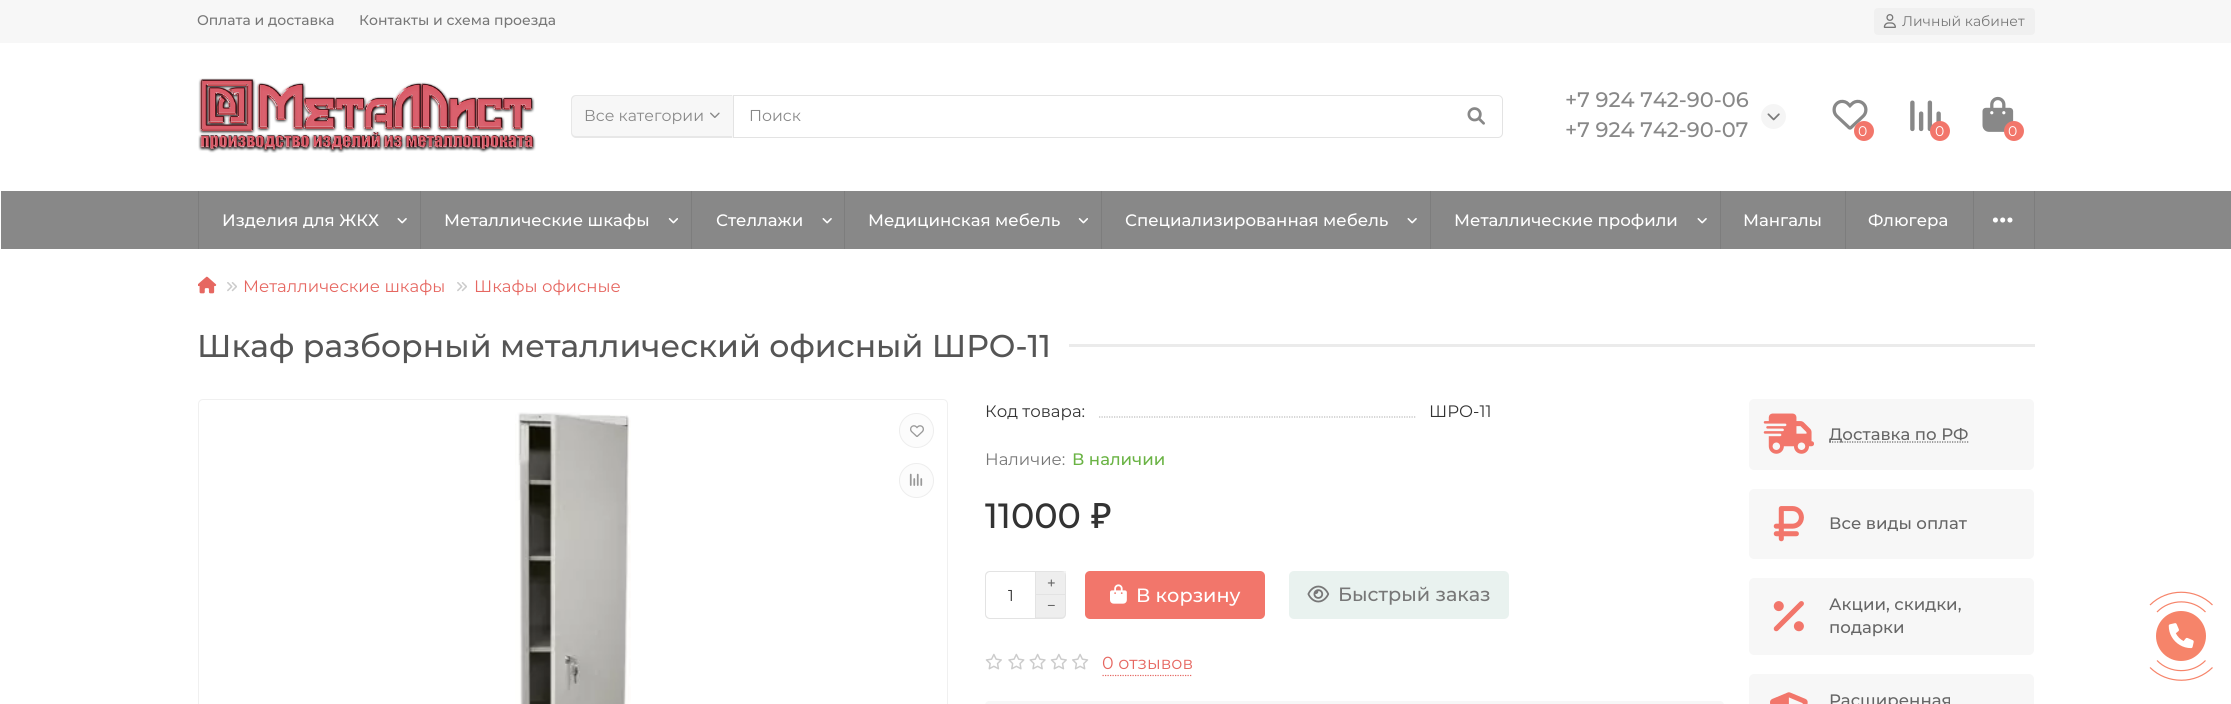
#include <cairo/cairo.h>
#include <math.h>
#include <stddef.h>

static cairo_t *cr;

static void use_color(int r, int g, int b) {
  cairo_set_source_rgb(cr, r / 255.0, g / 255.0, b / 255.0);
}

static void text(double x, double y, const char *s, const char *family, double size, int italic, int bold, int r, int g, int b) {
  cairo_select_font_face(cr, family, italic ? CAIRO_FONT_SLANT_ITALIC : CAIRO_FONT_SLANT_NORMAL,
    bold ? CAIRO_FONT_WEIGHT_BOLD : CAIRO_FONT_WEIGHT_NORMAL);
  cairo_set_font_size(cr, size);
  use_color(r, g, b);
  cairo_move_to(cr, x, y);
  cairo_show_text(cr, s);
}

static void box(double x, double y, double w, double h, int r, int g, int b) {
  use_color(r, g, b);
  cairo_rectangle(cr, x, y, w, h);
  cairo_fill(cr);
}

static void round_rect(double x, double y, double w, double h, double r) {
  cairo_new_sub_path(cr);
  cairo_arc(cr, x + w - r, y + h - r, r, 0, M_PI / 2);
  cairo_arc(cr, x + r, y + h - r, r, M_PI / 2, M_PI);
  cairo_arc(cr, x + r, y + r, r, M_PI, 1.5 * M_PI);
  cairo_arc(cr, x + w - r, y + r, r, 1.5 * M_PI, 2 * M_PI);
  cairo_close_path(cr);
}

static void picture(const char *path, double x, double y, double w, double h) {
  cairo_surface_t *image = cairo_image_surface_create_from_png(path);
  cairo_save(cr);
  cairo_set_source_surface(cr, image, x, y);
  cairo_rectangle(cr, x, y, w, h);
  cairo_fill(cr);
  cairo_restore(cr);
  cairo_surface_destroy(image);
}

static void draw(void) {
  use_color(255, 255, 255);
  cairo_paint(cr);
  box(0, 0, 2231, 43, 247, 247, 247);
  use_color(240, 240, 240);
  round_rect(1874, 8, 161, 27, 4);
  cairo_fill(cr);
  picture("img_01.png", 1883, 14, 13, 14);
  picture("img_02.png", 198, 78, 338, 75);
  use_color(247, 247, 247);
  cairo_new_path(cr);
  cairo_move_to(cr, 576, 95);
  cairo_line_to(cr, 733, 95);
  cairo_line_to(cr, 733, 138);
  cairo_line_to(cr, 576, 138);
  cairo_curve_to(cr, 573, 138, 571, 136, 571, 133);
  cairo_line_to(cr, 571, 100);
  cairo_curve_to(cr, 571, 97, 573, 95, 576, 95);
  cairo_close_path(cr);
  cairo_fill(cr);
  cairo_set_source_rgba(cr, 0, 0, 0, 0.07);
  cairo_set_fill_rule(cr, CAIRO_FILL_RULE_EVEN_ODD);
  cairo_new_path(cr);
  cairo_move_to(cr, 576, 95);
  cairo_line_to(cr, 732, 95);
  cairo_line_to(cr, 732, 138);
  cairo_line_to(cr, 576, 138);
  cairo_curve_to(cr, 573, 138, 571, 135, 571, 132);
  cairo_line_to(cr, 571, 100);
  cairo_curve_to(cr, 571, 97, 573, 95, 576, 95);
  cairo_close_path(cr);
  cairo_move_to(cr, 576, 96);
  cairo_line_to(cr, 732, 96);
  cairo_line_to(cr, 732, 136);
  cairo_line_to(cr, 576, 136);
  cairo_curve_to(cr, 574, 136, 572, 135, 572, 132);
  cairo_line_to(cr, 572, 100);
  cairo_curve_to(cr, 572, 98, 574, 96, 576, 96);
  cairo_close_path(cr);
  cairo_fill(cr);
  picture("img_03.png", 710, 112, 10, 6);
  cairo_new_path(cr);
  cairo_move_to(cr, 733.5, 95.5);
  cairo_line_to(cr, 1498, 95.5);
  cairo_curve_to(cr, 1500.5, 95.5, 1502.5, 97.5, 1502.5, 100);
  cairo_line_to(cr, 1502.5, 133);
  cairo_curve_to(cr, 1502.5, 135.5, 1500.5, 137.5, 1498, 137.5);
  cairo_line_to(cr, 733.5, 137.5);
  cairo_close_path(cr);
  use_color(227, 227, 227);
  cairo_set_line_width(cr, 1);
  cairo_stroke(cr);
  picture("img_04.png", 1467, 107, 18, 18);
  use_color(245, 245, 245);
  cairo_arc(cr, 1773.5, 116.5, 12.5, 0, 2 * M_PI);
  cairo_fill(cr);
  picture("img_05.png", 1767, 113, 13, 8);
  picture("img_06.png", 1832, 99, 36, 31);
  use_color(242, 118, 107);
  cairo_arc(cr, 1864, 131, 10, 0, 2 * M_PI);
  cairo_fill(cr);
  picture("img_07.png", 1910, 100, 31, 32);
  cairo_arc(cr, 1940, 131, 10, 0, 2 * M_PI);
  cairo_fill(cr);
  picture("img_08.png", 1982, 96, 32, 36);
  cairo_arc(cr, 2014, 131, 10, 0, 2 * M_PI);
  cairo_fill(cr);
  box(1, 191, 2230, 58, 136, 136, 136);
  box(198, 191, 1, 58, 125, 125, 125);
  picture("img_09.png", 397, 218, 10, 6);
  box(420, 191, 1, 58, 125, 125, 125);
  picture("img_10.png", 668, 218, 10, 6);
  box(691, 191, 1, 58, 125, 125, 125);
  picture("img_09.png", 822, 218, 10, 6);
  box(844, 191, 1, 58, 125, 125, 125);
  picture("img_10.png", 1078, 218, 10, 6);
  box(1101, 191, 1, 58, 125, 125, 125);
  picture("img_09.png", 1407, 218, 10, 6);
  box(1430, 191, 1, 58, 125, 125, 125);
  picture("img_09.png", 1697, 218, 10, 6);
  box(1720, 191, 1, 58, 125, 125, 125);
  box(1845, 191, 1, 58, 125, 125, 125);
  box(1973, 191, 1, 58, 125, 125, 125);
  box(2034, 191, 1, 58, 125, 125, 125);
  picture("img_11.png", 1992, 217, 21, 6);
  picture("img_12.png", 198, 276, 19, 18);
  picture("img_13.png", 227, 282, 10, 10);
  picture("img_13.png", 457, 282, 10, 10);
  box(1069, 344, 966, 3, 235, 235, 235);
  round_rect(198.5, 399.5, 749, 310, 4.5);
  use_color(240, 240, 240);
  cairo_stroke(cr);
  picture("img_14.png", 515, 412, 116, 292);
  use_color(252, 252, 252);
  cairo_arc(cr, 916.5, 430.5, 17, 0, 2 * M_PI);
  cairo_fill_preserve(cr);
  use_color(237, 237, 237);
  cairo_stroke(cr);
  picture("img_15.png", 910, 425, 14, 12);
  use_color(252, 252, 252);
  cairo_arc(cr, 916.5, 480.5, 17, 0, 2 * M_PI);
  cairo_fill_preserve(cr);
  use_color(237, 237, 237);
  cairo_stroke(cr);
  picture("img_16.png", 909, 473, 14, 13);
  cairo_new_path(cr);
  cairo_move_to(cr, 1099, 417);
  cairo_line_to(cr, 1416, 417);
  use_color(187, 187, 187);
  cairo_set_line_width(cr, 1.2);
  cairo_set_dash(cr, (double[]){1.25, 1.25}, 2, 0);
  cairo_stroke(cr);
  use_color(227, 227, 227);
  cairo_new_path(cr);
  cairo_move_to(cr, 990, 571);
  cairo_line_to(cr, 1035, 571);
  cairo_line_to(cr, 1035, 619);
  cairo_line_to(cr, 990, 619);
  cairo_curve_to(cr, 987, 619, 985, 617, 985, 614);
  cairo_line_to(cr, 985, 576);
  cairo_curve_to(cr, 985, 573, 987, 571, 990, 571);
  cairo_close_path(cr);
  cairo_move_to(cr, 990, 572);
  cairo_line_to(cr, 1035, 572);
  cairo_line_to(cr, 1035, 618);
  cairo_line_to(cr, 990, 618);
  cairo_curve_to(cr, 988, 618, 986, 616, 986, 614);
  cairo_line_to(cr, 986, 576);
  cairo_curve_to(cr, 986, 574, 988, 572, 990, 572);
  cairo_close_path(cr);
  cairo_fill(cr);
  use_color(238, 238, 238);
  cairo_new_path(cr);
  cairo_move_to(cr, 1035, 571);
  cairo_line_to(cr, 1061, 571);
  cairo_curve_to(cr, 1064, 571, 1066, 573, 1066, 576);
  cairo_line_to(cr, 1066, 595);
  cairo_line_to(cr, 1035, 595);
  cairo_close_path(cr);
  cairo_fill(cr);
  cairo_rectangle(cr, 1035.5, 571.5, 30, 23);
  cairo_set_source_rgba(cr, 0, 0, 0, 0.05);
  cairo_set_line_width(cr, 1);
  cairo_set_dash(cr, NULL, 0, 0);
  cairo_stroke(cr);
  picture("img_17.png", 1047, 579, 8, 8);
  use_color(238, 238, 238);
  cairo_new_path(cr);
  cairo_move_to(cr, 1035, 595);
  cairo_line_to(cr, 1066, 595);
  cairo_line_to(cr, 1066, 614);
  cairo_curve_to(cr, 1066, 617, 1064, 619, 1061, 619);
  cairo_line_to(cr, 1035, 619);
  cairo_close_path(cr);
  cairo_fill(cr);
  cairo_set_source_rgba(cr, 0, 0, 0, 0.05);
  cairo_new_path(cr);
  cairo_move_to(cr, 1035, 595);
  cairo_line_to(cr, 1066, 595);
  cairo_line_to(cr, 1066, 614);
  cairo_curve_to(cr, 1066, 616.5, 1064, 619, 1061, 619);
  cairo_line_to(cr, 1035, 619);
  cairo_close_path(cr);
  cairo_move_to(cr, 1036, 595);
  cairo_line_to(cr, 1065, 595);
  cairo_line_to(cr, 1065, 614);
  cairo_curve_to(cr, 1065, 616, 1063.5, 617.5, 1061, 617.5);
  cairo_line_to(cr, 1036, 617.5);
  cairo_close_path(cr);
  cairo_fill(cr);
  picture("img_18.png", 1047, 604, 8, 2);
  use_color(242, 118, 107);
  round_rect(1085, 571, 180, 48, 5);
  cairo_fill(cr);
  picture("img_19.png", 1110, 584, 17, 20);
  use_color(233, 242, 239);
  round_rect(1289, 571, 220, 48, 5);
  cairo_fill(cr);
  picture("img_20.png", 1307, 585, 23, 18);
  picture("img_21.png", 985, 653, 17, 17);
  picture("img_22.png", 1008, 653, 17, 17);
  picture("img_23.png", 1029, 653, 17, 17);
  picture("img_21.png", 1050, 653, 17, 17);
  picture("img_24.png", 1072, 653, 17, 17);
  cairo_new_path(cr);
  cairo_move_to(cr, 1102.5, 675.5);
  cairo_line_to(cr, 1192.5, 675.5);
  use_color(230, 103, 97);
  cairo_set_line_width(cr, 1.2);
  cairo_set_dash(cr, (double[]){1.25, 1.25}, 2, 0);
  cairo_stroke(cr);
  use_color(247, 247, 247);
  round_rect(985, 701, 739, 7, 4);
  cairo_fill(cr);
  round_rect(1749, 399, 285, 71, 5);
  cairo_fill(cr);
  picture("img_25.png", 1763, 413, 51, 41);
  cairo_new_path(cr);
  cairo_move_to(cr, 1829.5, 442);
  cairo_line_to(cr, 1969, 442);
  use_color(102, 102, 102);
  cairo_stroke(cr);
  use_color(247, 247, 247);
  round_rect(1749, 489, 285, 70, 5);
  cairo_fill(cr);
  picture("img_26.png", 1773, 506, 31, 36);
  round_rect(1749, 578, 285, 77, 5);
  cairo_fill(cr);
  picture("img_27.png", 1773, 601, 31, 31);
  round_rect(1749, 674, 285, 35, 5);
  cairo_fill(cr);
  picture("img_28.png", 1770, 692, 38, 12);
  use_color(246, 132, 106);
  cairo_arc(cr, 2181, 636, 25, 0, 2 * M_PI);
  cairo_fill(cr);
  cairo_new_path(cr);
  cairo_move_to(cr, 2157, 612);
  cairo_curve_to(cr, 2170, 598.5, 2192.5, 598.5, 2205.5, 612);
  cairo_set_dash(cr, NULL, 0, 0);
  cairo_stroke(cr);
  cairo_new_path(cr);
  cairo_move_to(cr, 2150, 605);
  cairo_curve_to(cr, 2167, 588, 2195.5, 588, 2212.5, 605);
  cairo_stroke(cr);
  cairo_new_path(cr);
  cairo_move_to(cr, 2205.5, 660.5);
  cairo_curve_to(cr, 2192.5, 674, 2170, 674, 2157, 660.5);
  cairo_stroke(cr);
  cairo_new_path(cr);
  cairo_move_to(cr, 2212.5, 667.5);
  cairo_curve_to(cr, 2195.5, 684.5, 2167, 684.5, 2150, 667.5);
  cairo_stroke(cr);
  picture("img_29.png", 2168, 623, 26, 26);
  text(197, 25, "Оплата и доставка", "Montserrat Medium", 14, 0, 0, 119, 119, 119);
  text(359, 25, "Контакты и схема проезда", "Montserrat Medium", 14, 0, 0, 119, 119, 119);
  text(1902, 26, "Личный кабинет", "Montserrat", 14, 0, 0, 119, 119, 119);
  text(584, 121, "Все категории", "Montserrat", 15.75, 0, 0, 136, 136, 136);
  text(749, 121, "Поиск", "Montserrat", 15.75, 0, 0, 136, 136, 136);
  text(1565, 107, "+7 924 742-90-06", "Montserrat Medium", 21, 0, 0, 136, 136, 136);
  text(1565, 137, "+7 924 742-90-07", "Montserrat Medium", 21, 0, 0, 136, 136, 136);
  text(1858, 136, "0", "Montserrat", 14, 0, 0, 255, 255, 255);
  text(1935, 136, "0", "Montserrat", 14, 0, 0, 255, 255, 255);
  text(2008, 136, "0", "Montserrat", 14, 0, 0, 255, 255, 255);
  text(222, 226, "Изделия для ЖКХ", "Montserrat Medium", 16.6, 0, 0, 255, 255, 255);
  text(444, 226, "Металлические шкафы", "Montserrat Medium", 16.6, 0, 0, 255, 255, 255);
  text(716, 226, "Стеллажи", "Montserrat Medium", 16.6, 0, 0, 255, 255, 255);
  text(868, 226, "Медицинская мебель", "Montserrat Medium", 16.6, 0, 0, 255, 255, 255);
  text(1125, 226, "Специализированная мебель", "Montserrat Medium", 16.6, 0, 0, 255, 255, 255);
  text(1454, 226, "Металлические профили", "Montserrat Medium", 16.6, 0, 0, 255, 255, 255);
  text(1743, 226, "Мангалы", "Montserrat Medium", 16.6, 0, 0, 255, 255, 255);
  text(1868, 226, "Флюгера", "Montserrat Medium", 16.6, 0, 0, 255, 255, 255);
  text(243, 292, "Металлические шкафы", "Montserrat", 16.6, 0, 0, 230, 103, 97);
  text(474, 292, "Шкафы офисные", "Montserrat", 16.6, 0, 0, 230, 103, 97);
  text(197, 357, "Шкаф разборный металлический офисный ШРО-11", "Montserrat Medium", 31.5, 0, 0, 85, 85, 85);
  text(985, 417, "Код товара:", "Montserrat", 16.6, 0, 0, 51, 51, 51);
  text(1429, 417, "ШРО-11", "Montserrat", 16.6, 0, 0, 51, 51, 51);
  text(985, 465, "Наличие:", "Montserrat", 16.6, 0, 0, 119, 119, 119);
  text(1072, 465, "В наличии", "Montserrat Medium", 16.6, 0, 0, 106, 179, 68);
  text(985, 528, "11000", "Montserrat Medium", 35, 0, 0, 51, 51, 51);
  text(1091, 528, "₽", "Noto Sans Medium", 35, 0, 0, 51, 51, 51);
  text(1008, 601, "1", "Montserrat", 15.75, 0, 0, 51, 51, 51);
  text(1136, 602, "В корзину", "Montserrat Medium", 19.25, 0, 0, 255, 255, 255);
  text(1338, 601, "Быстрый заказ", "Montserrat Medium", 19.25, 0, 0, 119, 119, 119);
  text(1102, 669, "0 отзывов", "Montserrat", 17.5, 0, 0, 230, 103, 97);
  text(1829, 440, "Доставка по РФ", "Montserrat Medium", 16.6, 0, 0, 102, 102, 102);
  text(1829, 529, "Все виды оплат", "Montserrat Medium", 16.6, 0, 0, 102, 102, 102);
  text(1829, 610, "Акции, скидки,", "Montserrat Medium", 16.6, 0, 0, 102, 102, 102);
  text(1829, 633, "подарки", "Montserrat Medium", 16.6, 0, 0, 102, 102, 102);
  text(1829, 706, "Расширенная", "Montserrat Medium", 16.6, 0, 0, 102, 102, 102);
}

int main(void) {
  cairo_surface_t *surface = cairo_image_surface_create(CAIRO_FORMAT_RGB24, 2231, 704);
  cr = cairo_create(surface);
  cairo_font_options_t *options = cairo_font_options_create();
  cairo_font_options_set_hint_metrics(options, CAIRO_HINT_METRICS_OFF);
  cairo_font_options_set_hint_style(options, CAIRO_HINT_STYLE_NONE);
  cairo_set_font_options(cr, options);
  cairo_set_miter_limit(cr, 4);
  draw();
  cairo_surface_write_to_png(surface, "out.png");
  cairo_font_options_destroy(options);
  cairo_destroy(cr);
  cairo_surface_destroy(surface);
  return 0;
}
